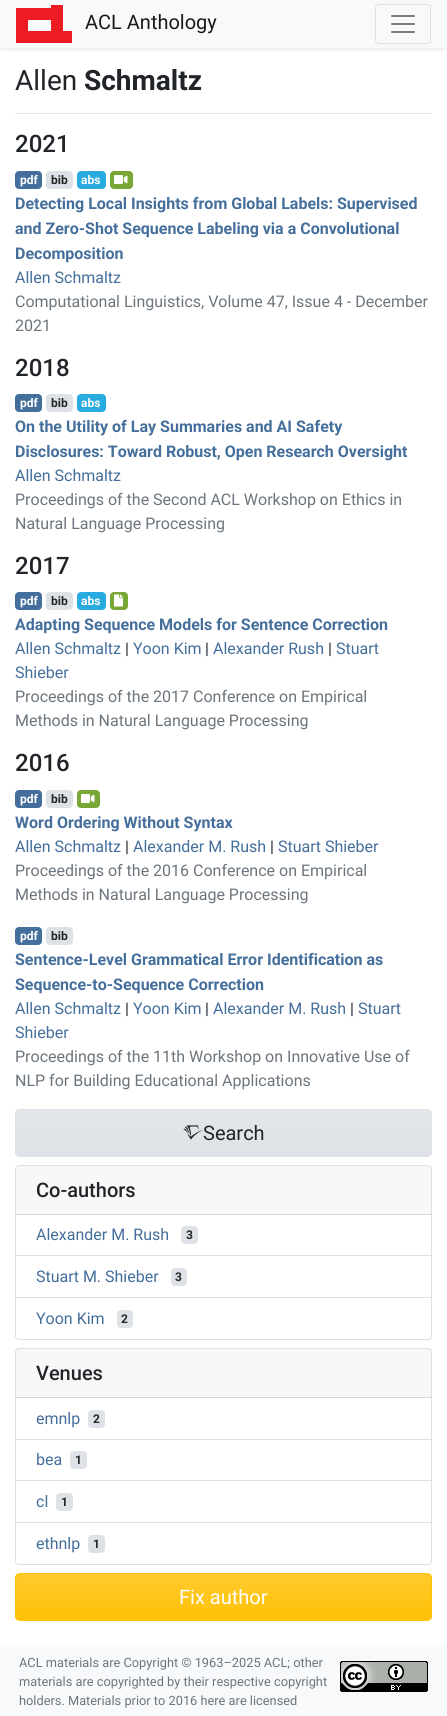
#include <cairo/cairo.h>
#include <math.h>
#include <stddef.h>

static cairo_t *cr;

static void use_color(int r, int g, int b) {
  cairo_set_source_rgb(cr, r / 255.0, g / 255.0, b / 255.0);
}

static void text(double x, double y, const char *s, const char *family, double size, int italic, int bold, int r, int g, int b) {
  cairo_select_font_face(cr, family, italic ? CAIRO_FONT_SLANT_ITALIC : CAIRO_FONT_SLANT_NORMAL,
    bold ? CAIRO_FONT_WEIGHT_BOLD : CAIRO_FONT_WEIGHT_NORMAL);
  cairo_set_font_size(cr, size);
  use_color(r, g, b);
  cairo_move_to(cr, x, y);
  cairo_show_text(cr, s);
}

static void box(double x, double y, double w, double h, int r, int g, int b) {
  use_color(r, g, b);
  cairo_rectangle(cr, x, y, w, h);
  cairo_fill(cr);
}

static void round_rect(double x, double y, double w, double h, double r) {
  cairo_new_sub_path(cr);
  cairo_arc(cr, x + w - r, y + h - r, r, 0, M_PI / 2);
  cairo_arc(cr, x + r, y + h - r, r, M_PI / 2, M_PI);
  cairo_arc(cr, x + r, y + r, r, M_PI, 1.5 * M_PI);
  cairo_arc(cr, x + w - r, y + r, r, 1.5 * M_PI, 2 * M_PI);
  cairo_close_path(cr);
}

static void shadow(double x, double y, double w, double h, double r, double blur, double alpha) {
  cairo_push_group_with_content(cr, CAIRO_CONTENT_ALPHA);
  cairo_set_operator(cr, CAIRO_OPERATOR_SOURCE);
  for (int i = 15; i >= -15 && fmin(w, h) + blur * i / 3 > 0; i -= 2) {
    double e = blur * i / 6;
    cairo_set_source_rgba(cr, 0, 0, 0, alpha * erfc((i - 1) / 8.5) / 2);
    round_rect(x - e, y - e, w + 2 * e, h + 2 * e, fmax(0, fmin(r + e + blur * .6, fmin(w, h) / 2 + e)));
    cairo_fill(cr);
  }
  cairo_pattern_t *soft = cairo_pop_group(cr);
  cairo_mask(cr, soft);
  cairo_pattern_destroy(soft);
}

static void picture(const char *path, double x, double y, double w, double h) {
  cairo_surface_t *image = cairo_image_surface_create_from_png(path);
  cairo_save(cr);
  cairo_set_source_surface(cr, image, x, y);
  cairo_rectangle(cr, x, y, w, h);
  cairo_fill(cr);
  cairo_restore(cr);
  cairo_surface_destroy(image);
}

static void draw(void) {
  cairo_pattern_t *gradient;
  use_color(255, 255, 255);
  cairo_paint(cr);
  use_color(0, 0, 0);
  shadow(0, 2, 447, 48, 0, 2, 0.07);
  box(0, 0, 447, 48, 248, 249, 250);
  use_color(237, 28, 36);
  cairo_set_fill_rule(cr, CAIRO_FILL_RULE_EVEN_ODD);
  cairo_new_path(cr);
  cairo_move_to(cr, 51, 5);
  cairo_line_to(cr, 51, 8);
  cairo_line_to(cr, 16, 8);
  cairo_line_to(cr, 16, 43);
  cairo_line_to(cr, 72, 43);
  cairo_line_to(cr, 72, 31);
  cairo_line_to(cr, 63, 31);
  cairo_line_to(cr, 63, 5);
  cairo_close_path(cr);
  cairo_move_to(cr, 28, 20);
  cairo_line_to(cr, 51, 20);
  cairo_line_to(cr, 51, 31);
  cairo_line_to(cr, 28, 31);
  cairo_close_path(cr);
  cairo_fill(cr);
  round_rect(375.5, 4.5, 55, 39, 3.5);
  use_color(223, 224, 225);
  cairo_set_line_width(cr, 1);
  cairo_stroke(cr);
  picture("img_01.png", 391, 15, 24, 18);
  box(15, 113, 417, 1, 230, 230, 230);
  use_color(68, 110, 155);
  round_rect(15, 171, 27, 18, 4);
  cairo_fill(cr);
  use_color(222, 226, 230);
  round_rect(46, 171, 27, 18, 4);
  cairo_fill(cr);
  use_color(41, 171, 224);
  round_rect(77, 171, 29, 18, 4);
  cairo_fill(cr);
  use_color(121, 167, 54);
  round_rect(110, 171, 23, 18, 4);
  cairo_fill(cr);
  picture("img_02.png", 114, 175, 14, 9);
  use_color(68, 110, 155);
  round_rect(15, 394, 27, 18, 4);
  cairo_fill(cr);
  use_color(222, 226, 230);
  round_rect(46, 394, 27, 18, 4);
  cairo_fill(cr);
  use_color(41, 171, 224);
  round_rect(77, 394, 29, 18, 4);
  cairo_fill(cr);
  use_color(68, 110, 155);
  round_rect(15, 592, 27, 18, 4);
  cairo_fill(cr);
  use_color(222, 226, 230);
  round_rect(46, 592, 27, 18, 4);
  cairo_fill(cr);
  use_color(41, 171, 224);
  round_rect(77, 592, 29, 18, 4);
  cairo_fill(cr);
  use_color(121, 167, 54);
  round_rect(110, 592, 18, 18, 4);
  cairo_fill(cr);
  picture("img_03.png", 114, 594, 9, 13);
  use_color(68, 110, 155);
  round_rect(15, 790, 27, 18, 4);
  cairo_fill(cr);
  use_color(222, 226, 230);
  round_rect(46, 790, 27, 18, 4);
  cairo_fill(cr);
  use_color(121, 167, 54);
  round_rect(77, 790, 23, 18, 4);
  cairo_fill(cr);
  picture("img_02.png", 81, 794, 14, 9);
  use_color(68, 110, 155);
  round_rect(15, 927, 27, 18, 4);
  cairo_fill(cr);
  use_color(222, 226, 230);
  round_rect(46, 927, 27, 18, 4);
  cairo_fill(cr);
  cairo_save(cr);
  cairo_set_fill_rule(cr, CAIRO_FILL_RULE_WINDING);
  round_rect(15, 1109, 417, 48, 5);
  cairo_clip(cr);
  gradient = cairo_pattern_create_linear(224, 1110, 224, 1156);
  cairo_pattern_add_color_stop_rgba(gradient, 0, 0.89, 0.902, 0.918, 1);
  cairo_pattern_add_color_stop_rgba(gradient, 1, 0.871, 0.886, 0.902, 1);
  cairo_set_source(cr, gradient);
  cairo_pattern_destroy(gradient);
  cairo_rectangle(cr, 15, 1110, 417, 46);
  cairo_fill(cr);
  cairo_restore(cr);
  round_rect(15.5, 1109.5, 416, 47, 4.5);
  cairo_stroke(cr);
  picture("img_04.png", 183, 1125, 20, 15);
  round_rect(15.5, 1165.5, 416, 174, 3.5);
  use_color(223, 223, 223);
  cairo_stroke(cr);
  cairo_set_source_rgba(cr, 0, 0, 0, 0.03);
  cairo_rectangle(cr, 16, 1166, 415, 48);
  cairo_fill(cr);
  box(16, 1214, 415, 1, 216, 216, 216);
  use_color(222, 226, 230);
  round_rect(181, 1226, 17, 18, 4);
  cairo_fill(cr);
  box(16, 1255, 415, 1, 223, 223, 223);
  use_color(222, 226, 230);
  round_rect(171, 1268, 16, 18, 4);
  cairo_fill(cr);
  box(16, 1297, 415, 1, 223, 223, 223);
  use_color(222, 226, 230);
  round_rect(117, 1310, 16, 18, 4);
  cairo_fill(cr);
  round_rect(15.5, 1348.5, 416, 216, 3.5);
  use_color(223, 223, 223);
  cairo_stroke(cr);
  cairo_set_source_rgba(cr, 0, 0, 0, 0.03);
  cairo_rectangle(cr, 16, 1349, 415, 48);
  cairo_fill(cr);
  box(16, 1397, 415, 1, 216, 216, 216);
  use_color(222, 226, 230);
  round_rect(88, 1410, 17, 18, 4);
  cairo_fill(cr);
  box(16, 1439, 415, 1, 223, 223, 223);
  use_color(222, 226, 230);
  round_rect(70, 1451, 17, 18, 4);
  cairo_fill(cr);
  box(16, 1480, 415, 1, 223, 223, 223);
  use_color(222, 226, 230);
  round_rect(56, 1493, 17, 18, 4);
  cairo_fill(cr);
  box(16, 1522, 415, 1, 223, 223, 223);
  use_color(222, 226, 230);
  round_rect(88, 1535, 17, 18, 4);
  cairo_fill(cr);
  cairo_save(cr);
  cairo_set_fill_rule(cr, CAIRO_FILL_RULE_WINDING);
  round_rect(15, 1573, 417, 48, 5);
  cairo_clip(cr);
  gradient = cairo_pattern_create_linear(224, 1574, 224, 1620);
  cairo_pattern_add_color_stop_rgba(gradient, 0, 1, 0.792, 0.173, 1);
  cairo_pattern_add_color_stop_rgba(gradient, 1, 1, 0.757, 0.027, 1);
  cairo_set_source(cr, gradient);
  cairo_pattern_destroy(gradient);
  cairo_rectangle(cr, 15, 1574, 417, 46);
  cairo_fill(cr);
  cairo_restore(cr);
  round_rect(15.5, 1573.5, 416, 47, 4.5);
  use_color(255, 193, 7);
  cairo_stroke(cr);
  box(0, 1645, 447, 71, 248, 249, 250);
  picture("img_05.png", 340, 1661, 88, 31);
  text(85, 29, "ACL Anthology", "Roboto", 20, 0, 0, 25, 25, 25);
  text(15, 90, "Allen", "Roboto", 28, 0, 0, 33, 37, 41);
  text(84, 90, "Schmaltz", "Roboto", 28, 0, 1, 33, 37, 41);
  text(15, 152, "2021", "Roboto Medium", 24, 0, 0, 33, 37, 41);
  text(20, 184, "pdf", "Roboto", 12, 0, 1, 255, 255, 255);
  text(51, 184, "bib", "Roboto", 12, 0, 1, 33, 37, 41);
  text(81, 184, "abs", "Roboto", 12, 0, 1, 255, 255, 255);
  text(15, 209, "Detecting Local Insights from Global Labels: Supervised", "Roboto", 16, 0, 1, 68, 110, 155);
  text(15, 234, "and Zero-Shot Sequence Labeling via a Convolutional", "Roboto", 16, 0, 1, 68, 110, 155);
  text(15, 259, "Decomposition", "Roboto", 16, 0, 1, 68, 110, 155);
  text(15, 283, "Allen Schmaltz", "Roboto", 16, 0, 0, 68, 110, 155);
  text(15, 307, "Computational Linguistics, Volume 47, Issue 4 - December", "Roboto", 16, 0, 0, 108, 117, 125);
  text(15, 331, "2021", "Roboto", 16, 0, 0, 108, 117, 125);
  text(15, 376, "2018", "Roboto Medium", 24, 0, 0, 33, 37, 41);
  text(20, 407, "pdf", "Roboto", 12, 0, 1, 255, 255, 255);
  text(51, 407, "bib", "Roboto", 12, 0, 1, 33, 37, 41);
  text(81, 407, "abs", "Roboto", 12, 0, 1, 255, 255, 255);
  text(15, 432, "On the Utility of Lay Summaries and AI Safety", "Roboto", 16, 0, 1, 68, 110, 155);
  text(15, 457, "Disclosures: Toward Robust, Open Research Oversight", "Roboto", 16, 0, 1, 68, 110, 155);
  text(15, 481, "Allen Schmaltz", "Roboto", 16, 0, 0, 68, 110, 155);
  text(15, 505, "Proceedings of the Second ACL Workshop on Ethics in", "Roboto", 16, 0, 0, 108, 117, 125);
  text(15, 529, "Natural Language Processing", "Roboto", 16, 0, 0, 108, 117, 125);
  text(15, 574, "2017", "Roboto Medium", 24, 0, 0, 33, 37, 41);
  text(20, 605, "pdf", "Roboto", 12, 0, 1, 255, 255, 255);
  text(51, 605, "bib", "Roboto", 12, 0, 1, 33, 37, 41);
  text(81, 605, "abs", "Roboto", 12, 0, 1, 255, 255, 255);
  text(15, 630, "Adapting Sequence Models for Sentence Correction", "Roboto", 16, 0, 1, 68, 110, 155);
  text(15, 654, "Allen Schmaltz", "Roboto", 16, 0, 0, 68, 110, 155);
  text(125, 654, "|", "Roboto", 16, 0, 0, 33, 37, 41);
  text(133, 654, "Yoon Kim", "Roboto", 16, 0, 0, 68, 110, 155);
  text(205, 654, "|", "Roboto", 16, 0, 0, 33, 37, 41);
  text(213, 654, "Alexander Rush", "Roboto", 16, 0, 0, 68, 110, 155);
  text(328, 654, "|", "Roboto", 16, 0, 0, 33, 37, 41);
  text(336, 654, "Stuart", "Roboto", 16, 0, 0, 68, 110, 155);
  text(15, 678, "Shieber", "Roboto", 16, 0, 0, 68, 110, 155);
  text(15, 702, "Proceedings of the 2017 Conference on Empirical", "Roboto", 16, 0, 0, 108, 117, 125);
  text(15, 726, "Methods in Natural Language Processing", "Roboto", 16, 0, 0, 108, 117, 125);
  text(15, 771, "2016", "Roboto Medium", 24, 0, 0, 33, 37, 41);
  text(20, 803, "pdf", "Roboto", 12, 0, 1, 255, 255, 255);
  text(51, 803, "bib", "Roboto", 12, 0, 1, 33, 37, 41);
  text(15, 828, "Word Ordering Without Syntax", "Roboto", 16, 0, 1, 68, 110, 155);
  text(15, 852, "Allen Schmaltz", "Roboto", 16, 0, 0, 68, 110, 155);
  text(125, 852, "|", "Roboto", 16, 0, 0, 33, 37, 41);
  text(133, 852, "Alexander M. Rush", "Roboto", 16, 0, 0, 68, 110, 155);
  text(270, 852, "|", "Roboto", 16, 0, 0, 33, 37, 41);
  text(278, 852, "Stuart Shieber", "Roboto", 16, 0, 0, 68, 110, 155);
  text(15, 876, "Proceedings of the 2016 Conference on Empirical", "Roboto", 16, 0, 0, 108, 117, 125);
  text(15, 900, "Methods in Natural Language Processing", "Roboto", 16, 0, 0, 108, 117, 125);
  text(20, 940, "pdf", "Roboto", 12, 0, 1, 255, 255, 255);
  text(51, 940, "bib", "Roboto", 12, 0, 1, 33, 37, 41);
  text(15, 965, "Sentence-Level Grammatical Error Identification as", "Roboto", 16, 0, 1, 68, 110, 155);
  text(15, 990, "Sequence-to-Sequence Correction", "Roboto", 16, 0, 1, 68, 110, 155);
  text(15, 1014, "Allen Schmaltz", "Roboto", 16, 0, 0, 68, 110, 155);
  text(125, 1014, "|", "Roboto", 16, 0, 0, 33, 37, 41);
  text(133, 1014, "Yoon Kim", "Roboto", 16, 0, 0, 68, 110, 155);
  text(205, 1014, "|", "Roboto", 16, 0, 0, 33, 37, 41);
  text(213, 1014, "Alexander M. Rush", "Roboto", 16, 0, 0, 68, 110, 155);
  text(350, 1014, "|", "Roboto", 16, 0, 0, 33, 37, 41);
  text(358, 1014, "Stuart", "Roboto", 16, 0, 0, 68, 110, 155);
  text(15, 1038, "Shieber", "Roboto", 16, 0, 0, 68, 110, 155);
  text(15, 1062, "Proceedings of the 11th Workshop on Innovative Use of", "Roboto", 16, 0, 0, 108, 117, 125);
  text(15, 1086, "NLP for Building Educational Applications", "Roboto", 16, 0, 0, 108, 117, 125);
  text(203, 1140, "Search", "Roboto", 20, 0, 0, 33, 37, 41);
  text(36, 1197, "Co-authors", "Roboto Medium", 20, 0, 0, 33, 37, 41);
  text(36, 1240, "Alexander M. Rush", "Roboto", 16, 0, 0, 68, 110, 155);
  text(186, 1239, "3", "Roboto", 12, 0, 1, 33, 37, 41);
  text(36, 1282, "Stuart M. Shieber", "Roboto", 16, 0, 0, 68, 110, 155);
  text(175, 1281, "3", "Roboto", 12, 0, 1, 33, 37, 41);
  text(36, 1324, "Yoon Kim", "Roboto", 16, 0, 0, 68, 110, 155);
  text(121, 1323, "2", "Roboto", 12, 0, 1, 33, 37, 41);
  text(36, 1380, "Venues", "Roboto Medium", 20, 0, 0, 33, 37, 41);
  text(36, 1424, "emnlp", "Roboto", 16, 0, 0, 68, 110, 155);
  text(93, 1423, "2", "Roboto", 12, 0, 1, 33, 37, 41);
  text(36, 1465, "bea", "Roboto", 16, 0, 0, 68, 110, 155);
  text(75, 1464, "1", "Roboto", 12, 0, 1, 33, 37, 41);
  text(36, 1507, "cl", "Roboto", 16, 0, 0, 68, 110, 155);
  text(61, 1506, "1", "Roboto", 12, 0, 1, 33, 37, 41);
  text(36, 1549, "ethnlp", "Roboto", 16, 0, 0, 68, 110, 155);
  text(93, 1548, "1", "Roboto", 12, 0, 1, 33, 37, 41);
  text(179, 1604, "Fix author", "Roboto", 20, 0, 0, 255, 255, 255);
  text(19, 1667, "ACL materials are Copyright © 1963–2025 ACL; other", "Roboto", 12.8, 0, 0, 108, 117, 125);
  text(19, 1686, "materials are copyrighted by their respective copyright", "Roboto", 12.8, 0, 0, 108, 117, 125);
  text(19, 1705, "holders. Materials prior to 2016 here are licensed", "Roboto", 12.8, 0, 0, 108, 117, 125);
}

int main(void) {
  cairo_surface_t *surface = cairo_image_surface_create(CAIRO_FORMAT_RGB24, 447, 1716);
  cr = cairo_create(surface);
  cairo_font_options_t *options = cairo_font_options_create();
  cairo_font_options_set_hint_metrics(options, CAIRO_HINT_METRICS_OFF);
  cairo_font_options_set_hint_style(options, CAIRO_HINT_STYLE_NONE);
  cairo_set_font_options(cr, options);
  cairo_set_miter_limit(cr, 4);
  draw();
  cairo_surface_write_to_png(surface, "out.png");
  cairo_font_options_destroy(options);
  cairo_destroy(cr);
  cairo_surface_destroy(surface);
  return 0;
}
